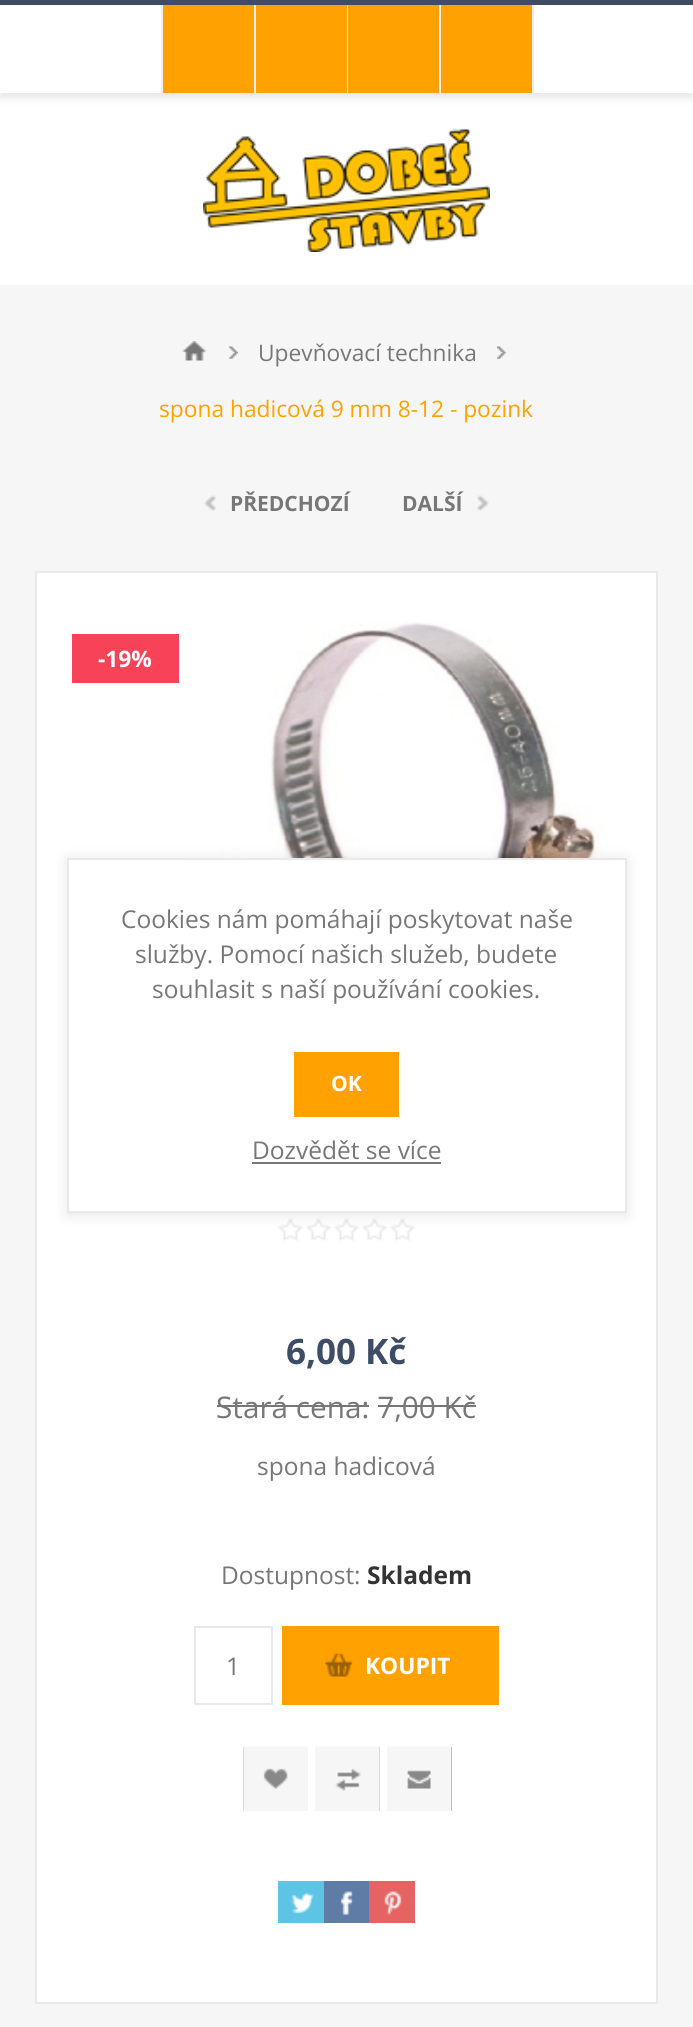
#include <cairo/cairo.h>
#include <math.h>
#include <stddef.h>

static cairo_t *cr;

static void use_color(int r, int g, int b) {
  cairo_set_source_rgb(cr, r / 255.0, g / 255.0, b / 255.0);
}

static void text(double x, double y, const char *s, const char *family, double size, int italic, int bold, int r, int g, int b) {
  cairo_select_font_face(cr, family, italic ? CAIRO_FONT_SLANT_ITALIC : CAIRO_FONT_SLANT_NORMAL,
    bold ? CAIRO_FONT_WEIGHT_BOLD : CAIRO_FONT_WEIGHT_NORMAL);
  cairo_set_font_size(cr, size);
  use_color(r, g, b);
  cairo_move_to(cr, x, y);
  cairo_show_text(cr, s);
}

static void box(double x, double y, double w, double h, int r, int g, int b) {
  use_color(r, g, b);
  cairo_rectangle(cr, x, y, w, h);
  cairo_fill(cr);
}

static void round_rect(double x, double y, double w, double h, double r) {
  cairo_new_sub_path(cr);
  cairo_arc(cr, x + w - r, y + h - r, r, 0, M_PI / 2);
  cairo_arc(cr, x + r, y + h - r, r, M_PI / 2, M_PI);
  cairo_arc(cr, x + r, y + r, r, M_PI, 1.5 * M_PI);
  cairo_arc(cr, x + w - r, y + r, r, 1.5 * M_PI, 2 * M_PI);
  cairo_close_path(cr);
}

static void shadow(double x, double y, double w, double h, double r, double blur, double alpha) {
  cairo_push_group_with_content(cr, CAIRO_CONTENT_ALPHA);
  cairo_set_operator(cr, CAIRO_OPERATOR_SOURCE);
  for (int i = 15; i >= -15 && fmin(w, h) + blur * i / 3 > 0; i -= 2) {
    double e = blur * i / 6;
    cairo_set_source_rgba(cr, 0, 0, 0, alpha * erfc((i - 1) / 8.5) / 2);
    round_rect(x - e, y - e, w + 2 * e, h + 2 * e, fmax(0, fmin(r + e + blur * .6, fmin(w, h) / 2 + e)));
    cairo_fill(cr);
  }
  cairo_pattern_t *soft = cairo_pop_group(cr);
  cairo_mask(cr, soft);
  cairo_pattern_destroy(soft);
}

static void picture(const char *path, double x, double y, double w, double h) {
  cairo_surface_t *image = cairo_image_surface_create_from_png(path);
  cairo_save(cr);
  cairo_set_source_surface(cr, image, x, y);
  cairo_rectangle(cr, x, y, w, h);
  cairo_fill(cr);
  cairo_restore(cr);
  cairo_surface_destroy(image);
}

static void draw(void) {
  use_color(246, 246, 246);
  cairo_paint(cr);
  box(0, 93, 693, 192, 255, 255, 255);
  use_color(0, 0, 0);
  shadow(0, 5, 693, 93, 0, 4.5, 0.1);
  box(0, 5, 693, 88, 255, 255, 255);
  box(0, 0, 693, 5, 62, 76, 102);
  box(163, 5, 91, 88, 255, 161, 1);
  box(254, 5, 2, 88, 238, 238, 238);
  box(161, 5, 2, 88, 238, 238, 238);
  box(256, 5, 91, 88, 255, 161, 1);
  box(347, 5, 1, 88, 238, 238, 238);
  box(348, 5, 91, 88, 255, 161, 1);
  box(439, 5, 2, 88, 238, 238, 238);
  box(441, 5, 91, 88, 255, 161, 1);
  box(532, 5, 2, 88, 238, 238, 238);
  picture("img_01.png", 203, 129, 287, 123);
  picture("img_02.png", 182, 341, 25, 20);
  picture("img_03.png", 229, 346, 9, 13);
  picture("img_04.png", 497, 346, 9, 13);
  picture("img_05.png", 204, 495, 12, 16);
  picture("img_06.png", 477, 495, 12, 16);
  use_color(255, 255, 255);
  cairo_rectangle(cr, 36, 572, 621, 1431);
  cairo_fill_preserve(cr);
  use_color(233, 233, 233);
  cairo_stroke(cr);
  picture("img_07.png", 81, 622, 540, 236);
  box(72, 634, 107, 49, 247, 66, 88);
  picture("img_08.png", 278, 1218, 137, 23);
  box(217, 1405, 152, 2, 119, 119, 119);
  box(378, 1405, 98, 2, 119, 119, 119);
  cairo_rectangle(cr, 195, 1627, 77, 77);
  use_color(233, 233, 233);
  cairo_stroke(cr);
  box(282, 1626, 217, 79, 255, 161, 1);
  picture("img_09.png", 325, 1653, 28, 24);
  box(243, 1747, 45, 64, 136, 136, 136);
  picture("img_10.png", 243, 1746, 65, 65);
  box(335, 1747, 45, 64, 136, 136, 136);
  picture("img_11.png", 315, 1746, 65, 65);
  box(407, 1747, 45, 64, 136, 136, 136);
  picture("img_12.png", 387, 1746, 65, 65);
  box(278, 1881, 46, 42, 93, 196, 230);
  picture("img_13.png", 291, 1893, 23, 21);
  box(324, 1881, 45, 42, 95, 124, 167);
  picture("img_14.png", 340, 1891, 13, 24);
  box(369, 1881, 46, 42, 229, 99, 99);
  picture("img_15.png", 384, 1891, 18, 24);
  use_color(0, 0, 0);
  shadow(67, 859, 560, 356, 0, 7, 0.1);
  use_color(255, 255, 255);
  cairo_rectangle(cr, 68, 859, 558, 353);
  cairo_fill_preserve(cr);
  use_color(233, 233, 233);
  cairo_stroke(cr);
  box(294, 1052, 105, 65, 255, 161, 1);
  box(252, 1162, 189, 2, 119, 119, 119);
  text(258, 361, "Upevňovací technika", "Open Sans", 22.75, 0, 0, 119, 119, 119);
  text(159, 417, "spona hadicová 9 mm 8-12 - pozink", "Open Sans", 22.75, 0, 0, 255, 161, 1);
  text(230, 511, "PŘEDCHOZÍ", "Open Sans", 21, 0, 1, 119, 119, 119);
  text(402, 511, "DALŠÍ", "Open Sans", 21, 0, 1, 119, 119, 119);
  text(98, 667, "-19%", "Open Sans", 22.75, 0, 1, 255, 255, 255);
  text(286, 1364, "6,00 Kč", "Open Sans", 35, 0, 1, 62, 76, 102);
  text(216, 1418, "Stará cena: 7,00 Kč", "Open Sans", 29.75, 0, 0, 119, 119, 119);
  text(257, 1475, "spona hadicová", "Open Sans", 24.5, 0, 0, 119, 119, 119);
  text(221, 1584, "Dostupnost:", "Open Sans", 24.5, 0, 0, 119, 119, 119);
  text(367, 1584, "Skladem", "Open Sans", 24.5, 0, 1, 51, 51, 51);
  text(226, 1675, "1", "Open Sans", 24.5, 0, 0, 119, 119, 119);
  text(365, 1674, "KOUPIT", "Open Sans", 22.75, 0, 1, 255, 255, 255);
  text(121, 928, "Cookies nám pomáhají poskytovat naše", "Open Sans", 24.5, 0, 0, 119, 119, 119);
  text(135, 963, "služby. Pomocí našich služeb, budete", "Open Sans", 24.5, 0, 0, 119, 119, 119);
  text(152, 998, "souhlasit s naší používání cookies.", "Open Sans", 24.5, 0, 0, 119, 119, 119);
  text(331, 1091, "OK", "Open Sans", 21, 0, 1, 255, 255, 255);
  text(252, 1159, "Dozvědět se více", "Open Sans", 24.5, 0, 0, 119, 119, 119);
}

int main(void) {
  cairo_surface_t *surface = cairo_image_surface_create(CAIRO_FORMAT_RGB24, 693, 2027);
  cr = cairo_create(surface);
  cairo_font_options_t *options = cairo_font_options_create();
  cairo_font_options_set_hint_metrics(options, CAIRO_HINT_METRICS_OFF);
  cairo_font_options_set_hint_style(options, CAIRO_HINT_STYLE_NONE);
  cairo_set_font_options(cr, options);
  cairo_set_miter_limit(cr, 4);
  draw();
  cairo_surface_write_to_png(surface, "out.png");
  cairo_font_options_destroy(options);
  cairo_destroy(cr);
  cairo_surface_destroy(surface);
  return 0;
}
